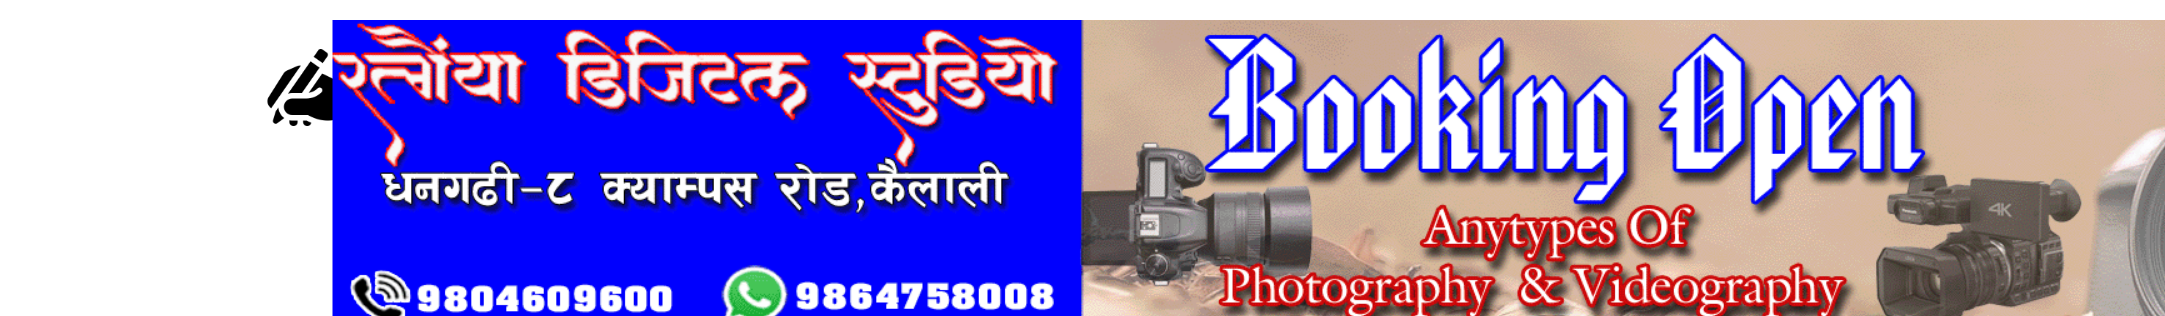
#include <cairo/cairo.h>
#include <math.h>
#include <stddef.h>

static cairo_t *cr;

static void use_color(int r, int g, int b) {
  cairo_set_source_rgb(cr, r / 255.0, g / 255.0, b / 255.0);
}

static void picture(const char *path, double x, double y, double w, double h) {
  cairo_surface_t *image = cairo_image_surface_create_from_png(path);
  cairo_save(cr);
  cairo_set_source_surface(cr, image, x, y);
  cairo_rectangle(cr, x, y, w, h);
  cairo_fill(cr);
  cairo_restore(cr);
  cairo_surface_destroy(image);
}

static void draw(void) {
  use_color(255, 255, 255);
  cairo_paint(cr);
  picture("img_01.png", 267, 49, 66, 77);
  picture("img_02.png", 332, 20, 1833, 296);
}

int main(void) {
  cairo_surface_t *surface = cairo_image_surface_create(CAIRO_FORMAT_RGB24, 2165, 316);
  cr = cairo_create(surface);
  cairo_font_options_t *options = cairo_font_options_create();
  cairo_font_options_set_hint_metrics(options, CAIRO_HINT_METRICS_OFF);
  cairo_font_options_set_hint_style(options, CAIRO_HINT_STYLE_NONE);
  cairo_set_font_options(cr, options);
  cairo_set_miter_limit(cr, 4);
  draw();
  cairo_surface_write_to_png(surface, "out.png");
  cairo_font_options_destroy(options);
  cairo_destroy(cr);
  cairo_surface_destroy(surface);
  return 0;
}
